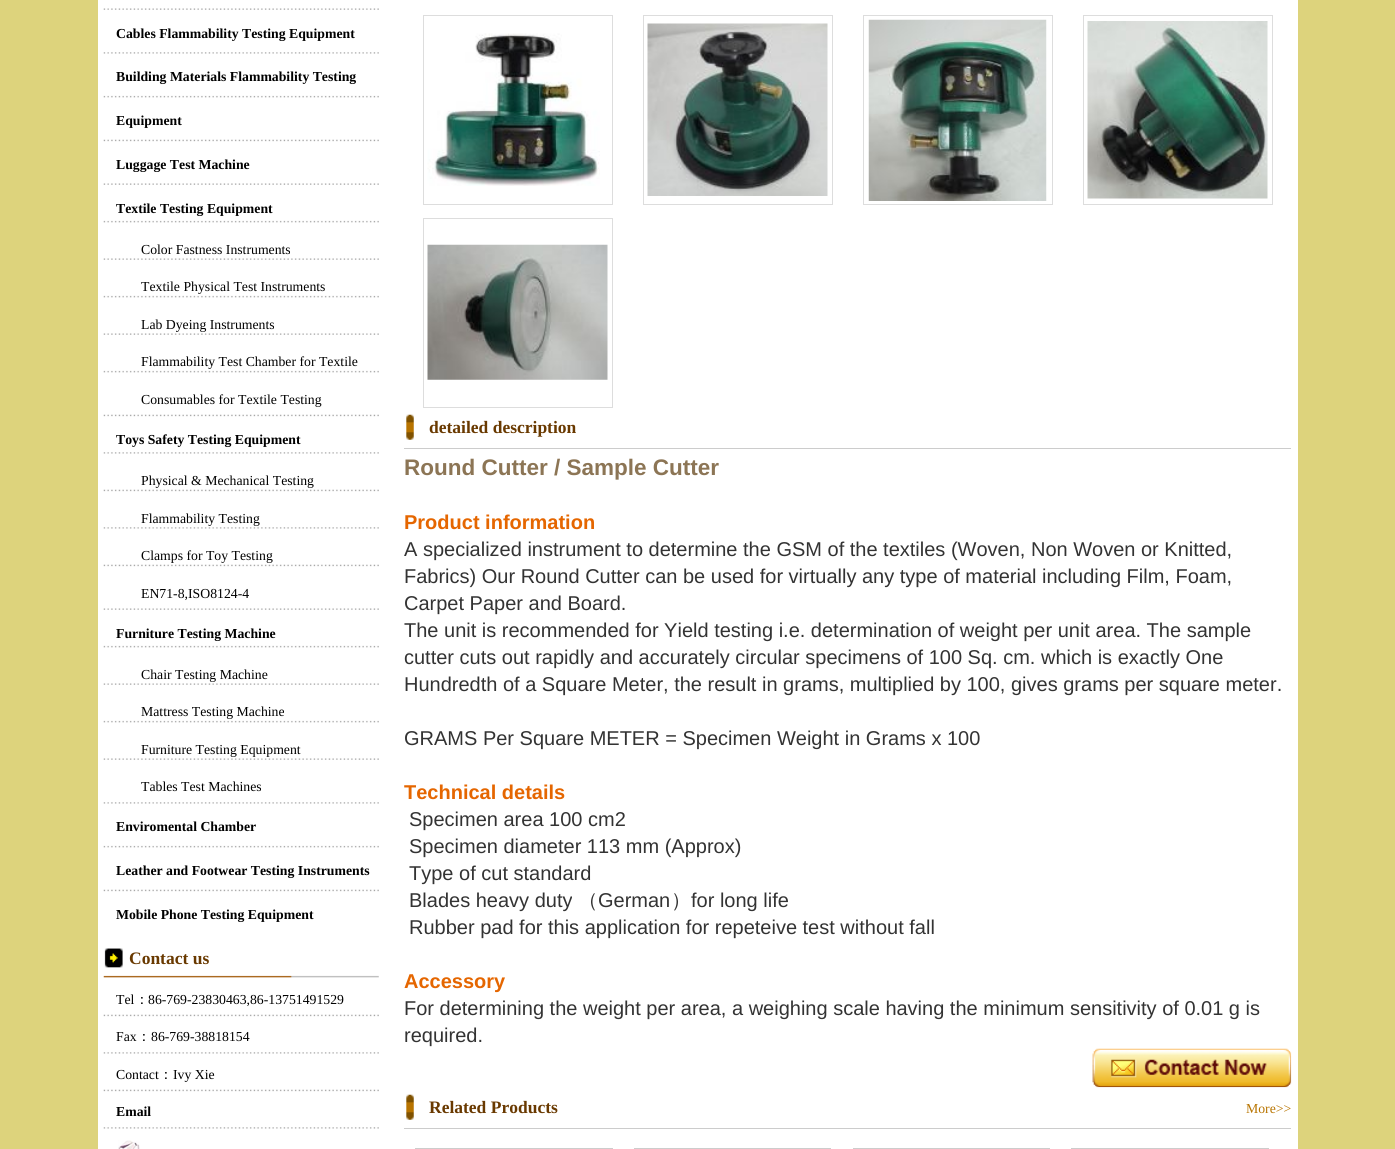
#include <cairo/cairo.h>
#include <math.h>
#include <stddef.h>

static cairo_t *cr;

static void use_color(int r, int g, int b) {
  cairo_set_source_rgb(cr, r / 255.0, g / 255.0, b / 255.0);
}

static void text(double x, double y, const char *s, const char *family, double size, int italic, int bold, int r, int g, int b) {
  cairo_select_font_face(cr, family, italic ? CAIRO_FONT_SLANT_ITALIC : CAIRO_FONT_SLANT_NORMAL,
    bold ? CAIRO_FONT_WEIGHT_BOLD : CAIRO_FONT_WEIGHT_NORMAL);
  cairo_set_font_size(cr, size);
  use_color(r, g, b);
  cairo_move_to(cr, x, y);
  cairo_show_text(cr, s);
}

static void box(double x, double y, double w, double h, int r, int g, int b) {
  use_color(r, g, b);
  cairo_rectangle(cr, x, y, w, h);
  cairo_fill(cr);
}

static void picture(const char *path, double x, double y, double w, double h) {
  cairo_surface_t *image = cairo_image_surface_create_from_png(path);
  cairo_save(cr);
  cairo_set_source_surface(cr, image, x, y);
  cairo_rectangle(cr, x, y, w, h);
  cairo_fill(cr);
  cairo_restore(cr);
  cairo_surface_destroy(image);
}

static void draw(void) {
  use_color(221, 211, 124);
  cairo_paint(cr);
  box(98, 0, 1200, 1149, 255, 255, 255);
  picture("img_01.png", 103, 8, 276, 2);
  picture("img_02.png", 103, 52, 276, 2);
  picture("img_03.png", 103, 95, 276, 3);
  picture("img_04.png", 103, 139, 276, 3);
  picture("img_01.png", 103, 183, 276, 2);
  picture("img_05.png", 103, 220, 276, 3);
  picture("img_06.png", 103, 258, 276, 2);
  picture("img_05.png", 103, 295, 276, 3);
  picture("img_06.png", 103, 333, 276, 2);
  picture("img_05.png", 103, 370, 276, 3);
  picture("img_04.png", 103, 414, 276, 3);
  picture("img_07.png", 103, 452, 276, 2);
  picture("img_08.png", 103, 489, 276, 3);
  picture("img_07.png", 103, 527, 276, 2);
  picture("img_08.png", 103, 564, 276, 3);
  picture("img_01.png", 103, 608, 276, 2);
  picture("img_05.png", 103, 645, 276, 3);
  picture("img_06.png", 103, 683, 276, 2);
  picture("img_05.png", 103, 720, 276, 3);
  picture("img_06.png", 103, 758, 276, 2);
  picture("img_02.png", 103, 802, 276, 2);
  picture("img_03.png", 103, 845, 276, 3);
  picture("img_04.png", 103, 889, 276, 3);
  picture("img_09.png", 103, 948, 276, 30);
  picture("img_08.png", 103, 1014, 276, 3);
  picture("img_07.png", 103, 1052, 276, 2);
  picture("img_08.png", 103, 1089, 276, 3);
  picture("img_07.png", 103, 1127, 276, 2);
  picture("img_10.png", 118, 1140, 22, 9);
  cairo_rectangle(cr, 423.5, 15.5, 189, 189);
  use_color(221, 221, 221);
  cairo_set_line_width(cr, 1);
  cairo_stroke(cr);
  picture("img_11.png", 427, 33, 173, 153);
  cairo_rectangle(cr, 643.5, 15.5, 189, 189);
  cairo_stroke(cr);
  picture("img_12.png", 647, 23, 181, 173);
  cairo_rectangle(cr, 863.5, 15.5, 189, 189);
  cairo_stroke(cr);
  picture("img_13.png", 868, 19, 179, 182);
  cairo_rectangle(cr, 1083.5, 15.5, 189, 189);
  cairo_stroke(cr);
  picture("img_14.png", 1087, 21, 181, 178);
  cairo_rectangle(cr, 423.5, 218.5, 189, 189);
  cairo_stroke(cr);
  picture("img_15.png", 427, 244, 181, 136);
  picture("img_16.png", 406, 414, 8, 26);
  box(404, 448, 887, 1, 204, 204, 204);
  picture("img_17.png", 1092, 1048, 200, 40);
  picture("img_16.png", 406, 1094, 8, 26);
  box(404, 1128, 887, 1, 204, 204, 204);
  cairo_rectangle(cr, 415.5, 1148.5, 197, 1);
  cairo_stroke(cr);
  cairo_rectangle(cr, 634.5, 1148.5, 196, 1);
  cairo_stroke(cr);
  cairo_rectangle(cr, 853.5, 1148.5, 196, 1);
  cairo_stroke(cr);
  cairo_rectangle(cr, 1071.5, 1148.5, 197, 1);
  cairo_stroke(cr);
  text(116, 38, "Cables Flammability Testing Equipment", "Liberation Serif", 13.75, 0, 1, 0, 0, 0);
  text(116, 81, "Building Materials Flammability Testing", "Liberation Serif", 13.75, 0, 1, 0, 0, 0);
  text(116, 125, "Equipment", "Liberation Serif", 13.75, 0, 1, 0, 0, 0);
  text(116, 169, "Luggage Test Machine", "Liberation Serif", 13.75, 0, 1, 0, 0, 0);
  text(116, 213, "Textile Testing Equipment", "Liberation Serif", 13.75, 0, 1, 0, 0, 0);
  text(141, 254, "Color Fastness Instruments", "Liberation Serif", 13.75, 0, 0, 0, 0, 0);
  text(141, 291, "Textile Physical Test Instruments", "Liberation Serif", 13.75, 0, 0, 0, 0, 0);
  text(141, 329, "Lab Dyeing Instruments", "Liberation Serif", 13.75, 0, 0, 0, 0, 0);
  text(141, 366, "Flammability Test Chamber for Textile", "Liberation Serif", 13.75, 0, 0, 0, 0, 0);
  text(141, 404, "Consumables for Textile Testing", "Liberation Serif", 13.75, 0, 0, 0, 0, 0);
  text(116, 444, "Toys Safety Testing Equipment", "Liberation Serif", 13.75, 0, 1, 0, 0, 0);
  text(141, 485, "Physical & Mechanical Testing", "Liberation Serif", 13.75, 0, 0, 0, 0, 0);
  text(141, 523, "Flammability Testing", "Liberation Serif", 13.75, 0, 0, 0, 0, 0);
  text(141, 560, "Clamps for Toy Testing", "Liberation Serif", 13.75, 0, 0, 0, 0, 0);
  text(141, 598, "EN71-8,ISO8124-4", "Liberation Serif", 13.75, 0, 0, 0, 0, 0);
  text(116, 638, "Furniture Testing Machine", "Liberation Serif", 13.75, 0, 1, 0, 0, 0);
  text(141, 679, "Chair Testing Machine", "Liberation Serif", 13.75, 0, 0, 0, 0, 0);
  text(141, 716, "Mattress Testing Machine", "Liberation Serif", 13.75, 0, 0, 0, 0, 0);
  text(141, 754, "Furniture Testing Equipment", "Liberation Serif", 13.75, 0, 0, 0, 0, 0);
  text(141, 791, "Tables Test Machines", "Liberation Serif", 13.75, 0, 0, 0, 0, 0);
  text(116, 831, "Enviromental Chamber", "Liberation Serif", 13.75, 0, 1, 0, 0, 0);
  text(116, 875, "Leather and Footwear Testing Instruments", "Liberation Serif", 13.75, 0, 1, 0, 0, 0);
  text(116, 919, "Mobile Phone Testing Equipment", "Liberation Serif", 13.75, 0, 1, 0, 0, 0);
  text(129, 964, "Contact us", "Liberation Serif", 17.5, 0, 1, 105, 57, 0);
  text(116, 1004, "Tel", "Liberation Serif", 13.75, 0, 0, 0, 0, 0);
  text(135, 1004, "：", "WenQuanYi Zen Hei Medium", 13.75, 0, 0, 0, 0, 0);
  text(148, 1004, "86-769-23830463,86-13751491529", "Liberation Serif", 13.75, 0, 0, 0, 0, 0);
  text(116, 1041, "Fax", "Liberation Serif", 13.75, 0, 0, 0, 0, 0);
  text(137, 1041, "：", "WenQuanYi Zen Hei Medium", 13.75, 0, 0, 0, 0, 0);
  text(151, 1041, "86-769-38818154", "Liberation Serif", 13.75, 0, 0, 0, 0, 0);
  text(116, 1079, "Contact", "Liberation Serif", 13.75, 0, 0, 0, 0, 0);
  text(159, 1079, "：", "WenQuanYi Zen Hei Medium", 13.75, 0, 0, 0, 0, 0);
  text(173, 1079, "Ivy Xie", "Liberation Serif", 13.75, 0, 0, 0, 0, 0);
  text(116, 1116, "Email", "Liberation Serif", 13.75, 0, 1, 0, 0, 0);
  text(429, 433, "detailed description", "Liberation Serif", 17.5, 0, 1, 105, 57, 0);
  text(404, 475, "Round Cutter / Sample Cutter", "Liberation Sans", 22.5, 0, 1, 140, 117, 85);
  text(404, 529, "Product information", "Liberation Sans", 20, 0, 1, 229, 102, 0);
  text(404, 556, "A specialized instrument to determine the GSM of the textiles (Woven, Non Woven or Knitted,", "Liberation Sans", 20, 0, 0, 51, 51, 51);
  text(404, 583, "Fabrics) Our Round Cutter can be used for virtually any type of material including Film, Foam,", "Liberation Sans", 20, 0, 0, 51, 51, 51);
  text(404, 610, "Carpet Paper and Board.", "Liberation Sans", 20, 0, 0, 51, 51, 51);
  text(404, 637, "The unit is recommended for Yield testing i.e. determination of weight per unit area. The sample", "Liberation Sans", 20, 0, 0, 51, 51, 51);
  text(404, 664, "cutter cuts out rapidly and accurately circular specimens of 100 Sq. cm. which is exactly One", "Liberation Sans", 20, 0, 0, 51, 51, 51);
  text(404, 691, "Hundredth of a Square Meter, the result in grams, multiplied by 100, gives grams per square meter.", "Liberation Sans", 20, 0, 0, 51, 51, 51);
  text(404, 745, "GRAMS Per Square METER = Specimen Weight in Grams x 100", "Liberation Sans", 20, 0, 0, 51, 51, 51);
  text(404, 799, "Technical details", "Liberation Sans", 20, 0, 1, 229, 102, 0);
  text(409, 826, "Specimen area 100 cm2", "Liberation Sans", 20, 0, 0, 51, 51, 51);
  text(409, 853, "Specimen diameter 113 mm (Approx)", "Liberation Sans", 20, 0, 0, 51, 51, 51);
  text(409, 880, "Type of cut standard", "Liberation Sans", 20, 0, 0, 51, 51, 51);
  text(409, 907, "Blades heavy duty", "Liberation Sans", 20, 0, 0, 51, 51, 51);
  text(578, 907, "（", "WenQuanYi Zen Hei Medium", 20, 0, 0, 51, 51, 51);
  text(598, 907, "German", "Liberation Sans", 20, 0, 0, 51, 51, 51);
  text(671, 907, "）", "WenQuanYi Zen Hei Medium", 20, 0, 0, 51, 51, 51);
  text(691, 907, "for long life", "Liberation Sans", 20, 0, 0, 51, 51, 51);
  text(409, 934, "Rubber pad for this application for repeteive test without fall", "Liberation Sans", 20, 0, 0, 51, 51, 51);
  text(404, 988, "Accessory", "Liberation Sans", 20, 0, 1, 229, 102, 0);
  text(404, 1015, "For determining the weight per area, a weighing scale having the minimum sensitivity of 0.01 g is", "Liberation Sans", 20, 0, 0, 51, 51, 51);
  text(404, 1042, "required.", "Liberation Sans", 20, 0, 0, 51, 51, 51);
  text(429, 1113, "Related Products", "Liberation Serif", 17.5, 0, 1, 105, 57, 0);
  text(1246, 1113, "More>>", "Liberation Serif", 13.75, 0, 0, 184, 116, 0);
}

int main(void) {
  cairo_surface_t *surface = cairo_image_surface_create(CAIRO_FORMAT_RGB24, 1395, 1149);
  cr = cairo_create(surface);
  cairo_font_options_t *options = cairo_font_options_create();
  cairo_font_options_set_hint_metrics(options, CAIRO_HINT_METRICS_OFF);
  cairo_font_options_set_hint_style(options, CAIRO_HINT_STYLE_NONE);
  cairo_set_font_options(cr, options);
  cairo_set_miter_limit(cr, 4);
  draw();
  cairo_surface_write_to_png(surface, "out.png");
  cairo_font_options_destroy(options);
  cairo_destroy(cr);
  cairo_surface_destroy(surface);
  return 0;
}
